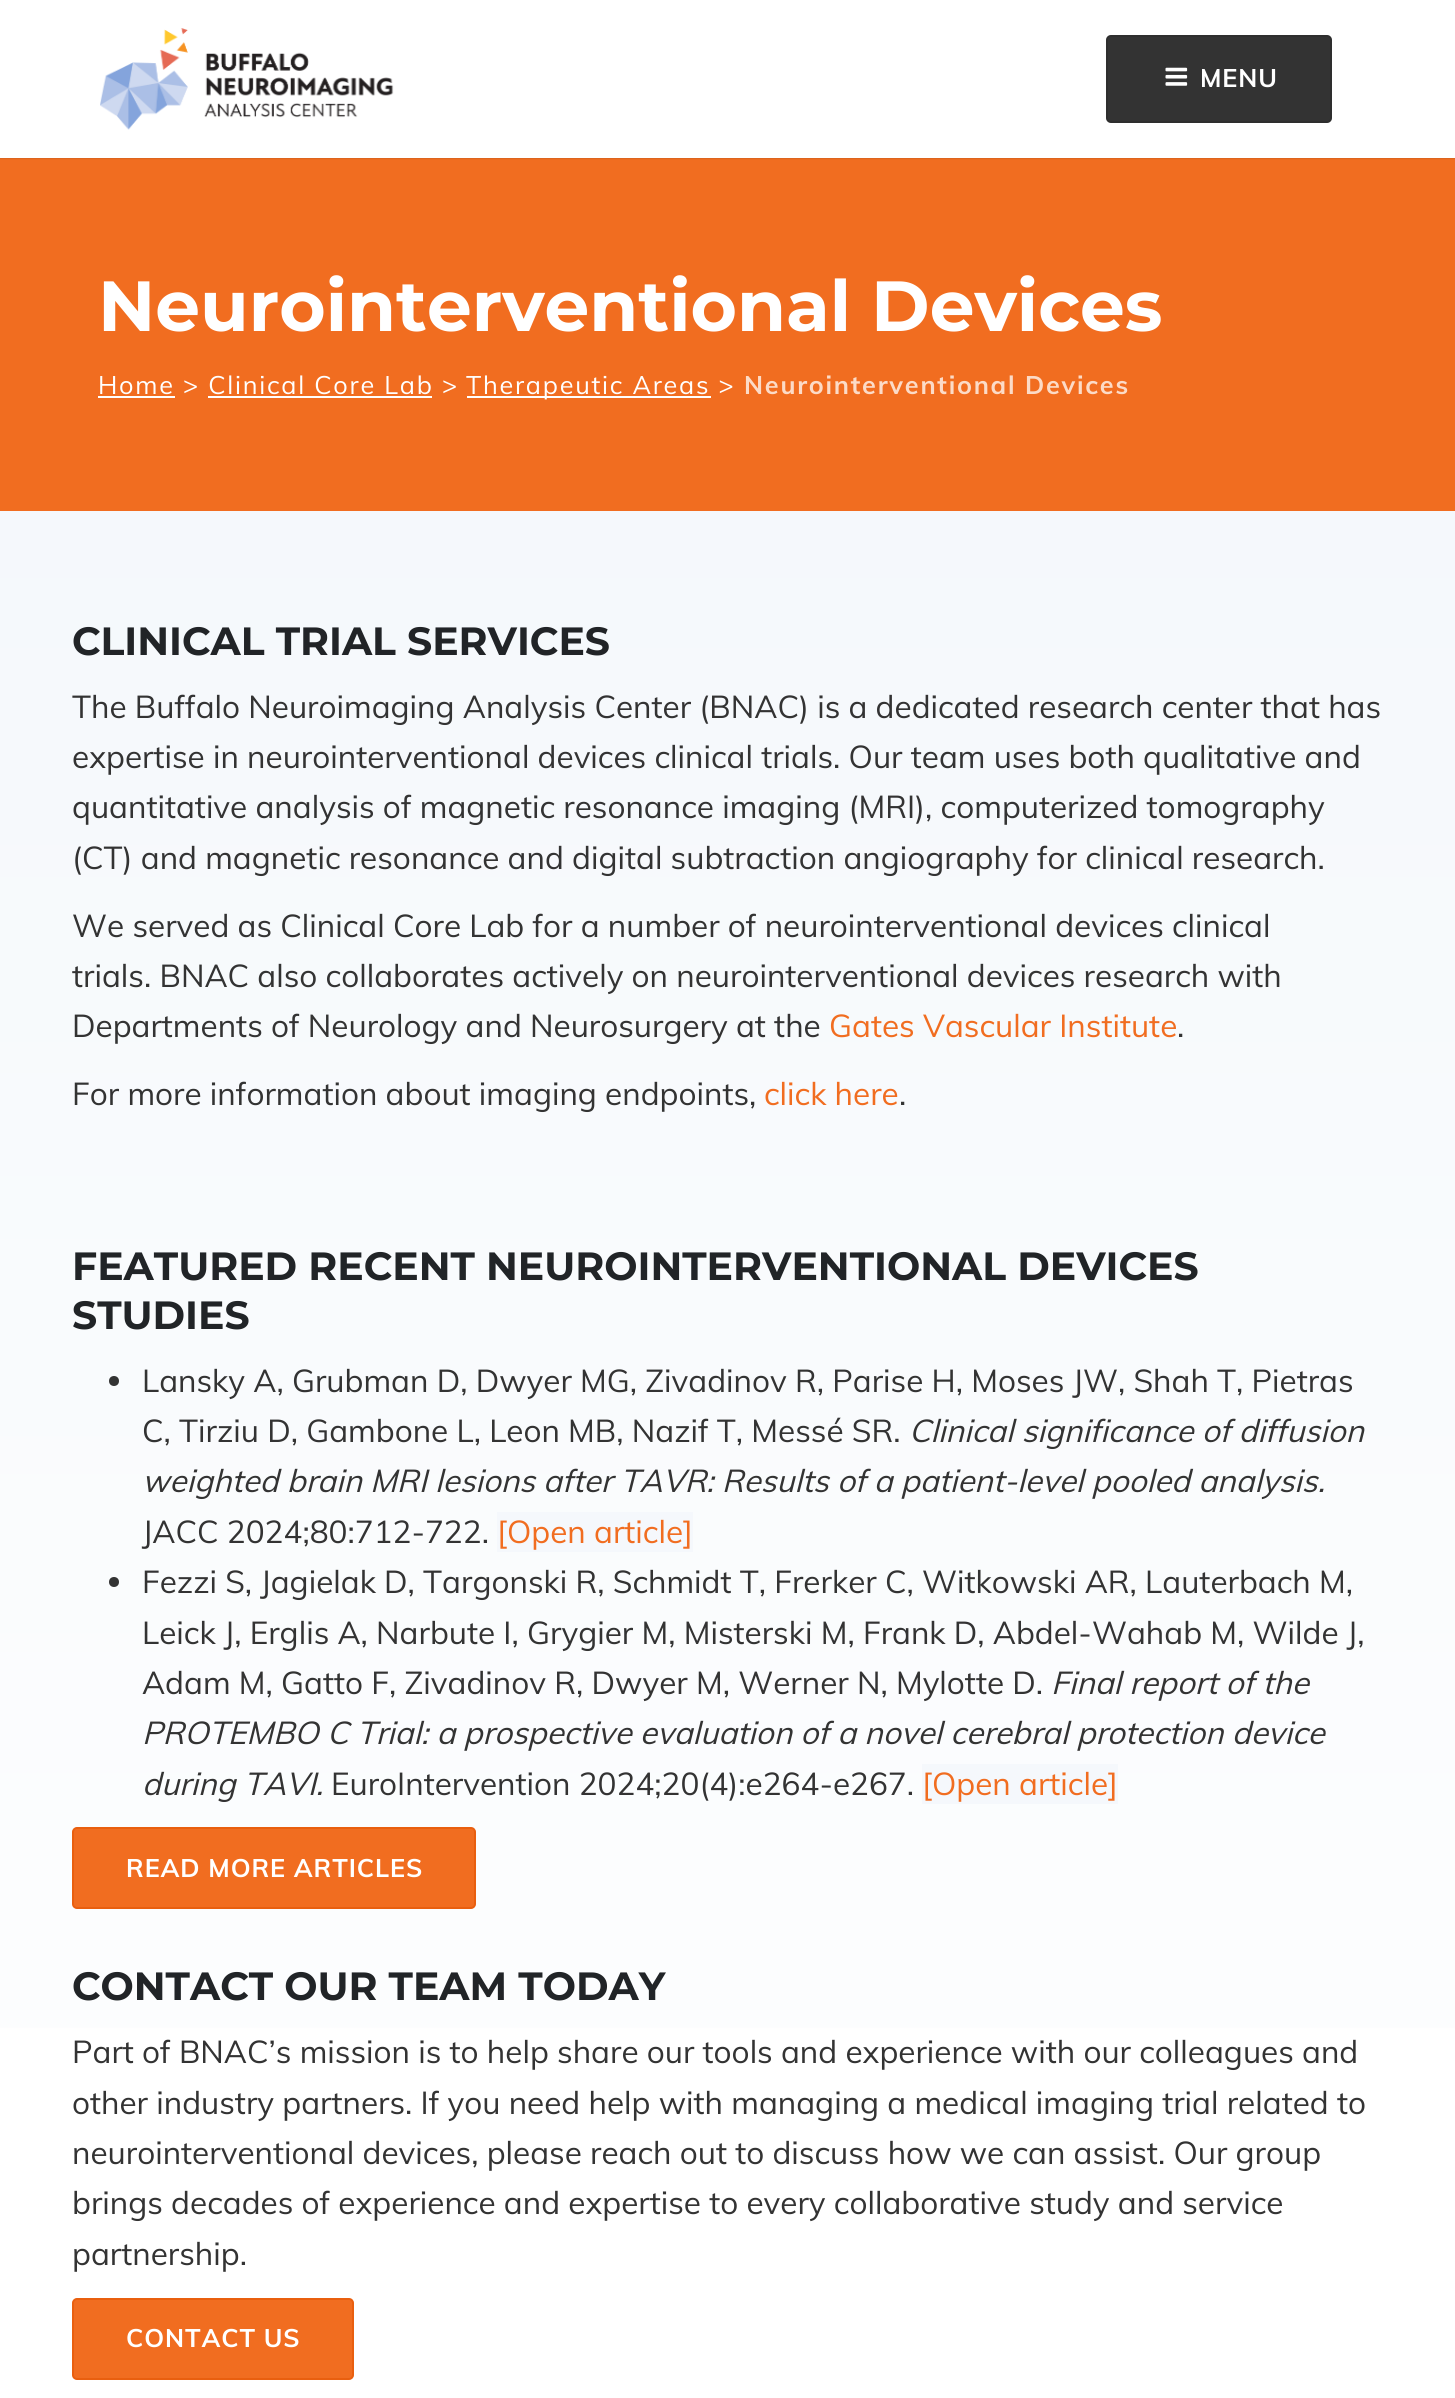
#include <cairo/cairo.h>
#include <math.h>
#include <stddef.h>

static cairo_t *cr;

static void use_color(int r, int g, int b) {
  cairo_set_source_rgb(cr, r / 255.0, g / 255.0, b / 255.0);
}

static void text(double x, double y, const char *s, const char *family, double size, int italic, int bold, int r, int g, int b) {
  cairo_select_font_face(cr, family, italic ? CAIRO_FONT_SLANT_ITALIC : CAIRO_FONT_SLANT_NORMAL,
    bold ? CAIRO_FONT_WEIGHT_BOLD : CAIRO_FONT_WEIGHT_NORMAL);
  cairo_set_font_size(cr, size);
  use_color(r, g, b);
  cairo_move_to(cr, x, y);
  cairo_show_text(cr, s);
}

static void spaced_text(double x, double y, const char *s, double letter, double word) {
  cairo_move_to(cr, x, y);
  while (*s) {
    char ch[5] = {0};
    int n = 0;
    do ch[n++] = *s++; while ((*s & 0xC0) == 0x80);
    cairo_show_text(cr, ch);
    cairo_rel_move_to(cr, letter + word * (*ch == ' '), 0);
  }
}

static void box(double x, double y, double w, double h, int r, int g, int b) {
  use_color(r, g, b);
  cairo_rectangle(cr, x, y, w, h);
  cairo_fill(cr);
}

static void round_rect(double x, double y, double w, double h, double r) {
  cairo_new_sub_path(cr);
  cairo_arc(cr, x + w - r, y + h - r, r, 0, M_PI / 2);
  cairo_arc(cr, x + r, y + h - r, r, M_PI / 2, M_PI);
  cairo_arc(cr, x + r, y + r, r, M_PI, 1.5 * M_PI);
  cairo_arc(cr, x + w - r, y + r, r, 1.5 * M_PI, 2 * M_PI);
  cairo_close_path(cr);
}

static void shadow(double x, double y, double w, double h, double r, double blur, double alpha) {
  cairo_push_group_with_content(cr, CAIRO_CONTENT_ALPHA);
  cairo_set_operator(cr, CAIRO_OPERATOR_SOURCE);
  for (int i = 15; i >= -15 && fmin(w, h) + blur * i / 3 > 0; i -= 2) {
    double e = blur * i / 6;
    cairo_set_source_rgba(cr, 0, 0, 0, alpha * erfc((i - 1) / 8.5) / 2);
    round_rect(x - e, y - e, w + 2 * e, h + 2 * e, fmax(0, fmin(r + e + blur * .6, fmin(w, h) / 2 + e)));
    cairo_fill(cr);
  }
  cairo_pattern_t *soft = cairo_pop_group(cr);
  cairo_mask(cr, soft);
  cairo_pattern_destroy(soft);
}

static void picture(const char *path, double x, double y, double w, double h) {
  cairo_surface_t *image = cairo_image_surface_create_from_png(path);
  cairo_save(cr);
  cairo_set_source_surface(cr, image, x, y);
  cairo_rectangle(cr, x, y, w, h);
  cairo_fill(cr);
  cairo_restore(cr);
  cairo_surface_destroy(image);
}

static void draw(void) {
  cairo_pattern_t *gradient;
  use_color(255, 255, 255);
  cairo_paint(cr);
  box(0, 158, 1455, 353, 241, 109, 32);
  use_color(0, 0, 0);
  shadow(0, 0, 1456, 158, 0, 1, 0.25);
  box(0, 0, 1455, 158, 255, 255, 255);
  picture("img_01.png", 100, 28, 294, 102);
  use_color(51, 51, 51);
  round_rect(1106, 35, 226, 88, 5);
  cairo_fill(cr);
  round_rect(1107, 36, 224, 86, 4);
  cairo_set_source_rgba(cr, 0, 0, 0, 0.1);
  cairo_stroke(cr);
  picture("img_02.png", 1165, 67, 23, 19);
  gradient = cairo_pattern_create_linear(728, 158, 728, 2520);
  cairo_pattern_add_color_stop_rgba(gradient, 0, 0.953, 0.969, 0.984, 1);
  cairo_pattern_add_color_stop_rgba(gradient, 1, 1, 1, 1, 1);
  cairo_set_source(cr, gradient);
  cairo_pattern_destroy(gradient);
  cairo_rectangle(cr, 0, 511, 1455, 1517);
  cairo_fill(cr);
  box(98, 396, 77, 2, 255, 255, 255);
  box(467, 396, 244, 2, 255, 255, 255);
  box(208, 396, 224, 2, 255, 255, 255);
  use_color(51, 51, 51);
  cairo_arc(cr, 114, 1381, 5, 0, 2 * M_PI);
  cairo_fill(cr);
  box(497, 1512, 196, 40, 245, 248, 252);
  use_color(51, 51, 51);
  cairo_arc(cr, 114, 1582, 5, 0, 2 * M_PI);
  cairo_fill(cr);
  box(922, 1764, 196, 40, 245, 248, 252);
  use_color(241, 109, 32);
  round_rect(73, 1828, 402, 80, 4);
  cairo_fill_preserve(cr);
  use_color(233, 95, 15);
  cairo_stroke(cr);
  use_color(241, 109, 32);
  round_rect(73, 2299, 280, 80, 4);
  cairo_fill_preserve(cr);
  use_color(233, 95, 15);
  cairo_stroke(cr);
  cairo_select_font_face(cr, "Muli", CAIRO_FONT_SLANT_NORMAL, CAIRO_FONT_WEIGHT_BOLD);
  cairo_set_font_size(cr, 25.25);
  use_color(255, 255, 255);
  spaced_text(1200, 87, "MENU", 0.9, 0);
  text(98, 331, "Neurointerventional Devices", "Montserrat", 70.9, 0, 1, 255, 255, 255);
  cairo_select_font_face(cr, "Muli", CAIRO_FONT_SLANT_NORMAL, CAIRO_FONT_WEIGHT_NORMAL);
  cairo_set_font_size(cr, 25.25);
  spaced_text(98, 394, "Home > Clinical Core Lab >", 1.75, 0);
  spaced_text(466, 394, "Therapeutic Areas >", 1.75, 0);
  cairo_select_font_face(cr, "Muli", CAIRO_FONT_SLANT_NORMAL, CAIRO_FONT_WEIGHT_BOLD);
  use_color(252, 219, 199);
  spaced_text(744, 394, "Neurointerventional Devices", 1.75, 0);
  text(72, 655, "CLINICAL TRIAL SERVICES", "Montserrat", 39.4, 0, 1, 33, 36, 39);
  text(72, 718, "The Buffalo Neuroimaging Analysis Center (BNAC) is a dedicated research center that has", "Muli", 31.5, 0, 0, 51, 51, 51);
  text(72, 768, "expertise in neurointerventional devices clinical trials. Our team uses both qualitative and", "Muli", 31.5, 0, 0, 51, 51, 51);
  text(72, 818, "quantitative analysis of magnetic resonance imaging (MRI), computerized tomography", "Muli", 31.5, 0, 0, 51, 51, 51);
  text(72, 869, "(CT) and magnetic resonance and digital subtraction angiography for clinical research.", "Muli", 31.5, 0, 0, 51, 51, 51);
  text(72, 937, "We served as Clinical Core Lab for a number of neurointerventional devices clinical", "Muli", 31.5, 0, 0, 51, 51, 51);
  text(72, 987, "trials. BNAC also collaborates actively on neurointerventional devices research with", "Muli", 31.5, 0, 0, 51, 51, 51);
  text(72, 1037, "Departments of Neurology and Neurosurgery at the", "Muli", 31.5, 0, 0, 51, 51, 51);
  text(829, 1037, "Gates Vascular Institute", "Muli", 31.5, 0, 0, 241, 109, 32);
  text(1177, 1037, ".", "Muli", 31.5, 0, 0, 51, 51, 51);
  text(72, 1105, "For more information about imaging endpoints,", "Muli", 31.5, 0, 0, 51, 51, 51);
  text(764, 1105, "click here", "Muli", 31.5, 0, 0, 241, 109, 32);
  text(899, 1105, ".", "Muli", 31.5, 0, 0, 51, 51, 51);
  text(72, 1280, "FEATURED RECENT NEUROINTERVENTIONAL DEVICES", "Montserrat", 39.4, 0, 1, 33, 36, 39);
  text(72, 1329, "STUDIES", "Montserrat", 39.4, 0, 1, 33, 36, 39);
  text(142, 1392, "Lansky A, Grubman D, Dwyer MG, Zivadinov R, Parise H, Moses JW, Shah T, Pietras", "Muli", 31.5, 0, 0, 51, 51, 51);
  text(142, 1442, "C, Tirziu D, Gambone L, Leon MB, Nazif T, Messé SR.", "Muli", 31.5, 0, 0, 51, 51, 51);
  text(909, 1442, "Clinical significance of diffusion", "Muli", 31.5, 1, 0, 51, 51, 51);
  text(142, 1492, "weighted brain MRI lesions after TAVR: Results of a patient-level pooled analysis.", "Muli", 31.5, 1, 0, 51, 51, 51);
  text(142, 1543, "JACC 2024;80:712-722.", "Muli", 31.5, 0, 0, 51, 51, 51);
  text(497, 1543, "[Open article]", "Muli", 31.5, 0, 0, 241, 109, 32);
  text(142, 1593, "Fezzi S, Jagielak D, Targonski R, Schmidt T, Frerker C, Witkowski AR, Lauterbach M,", "Muli", 31.5, 0, 0, 51, 51, 51);
  text(142, 1644, "Leick J, Erglis A, Narbute I, Grygier M, Misterski M, Frank D, Abdel-Wahab M, Wilde J,", "Muli", 31.5, 0, 0, 51, 51, 51);
  text(142, 1694, "Adam M, Gatto F, Zivadinov R, Dwyer M, Werner N, Mylotte D.", "Muli", 31.5, 0, 0, 51, 51, 51);
  text(1051, 1694, "Final report of the", "Muli", 31.5, 1, 0, 51, 51, 51);
  text(142, 1744, "PROTEMBO C Trial: a prospective evaluation of a novel cerebral protection device", "Muli", 31.5, 1, 0, 51, 51, 51);
  text(142, 1795, "during TAVI.", "Muli", 31.5, 1, 0, 51, 51, 51);
  text(331, 1795, "EuroIntervention 2024;20(4):e264-e267.", "Muli", 31.5, 0, 0, 51, 51, 51);
  text(922, 1795, "[Open article]", "Muli", 31.5, 0, 0, 241, 109, 32);
  cairo_select_font_face(cr, "Muli", CAIRO_FONT_SLANT_NORMAL, CAIRO_FONT_WEIGHT_BOLD);
  cairo_set_font_size(cr, 25.25);
  use_color(255, 255, 255);
  spaced_text(126, 1877, "READ MORE ARTICLES", 0.9, 0);
  text(72, 2000, "CONTACT OUR TEAM TODAY", "Montserrat", 39.4, 0, 1, 33, 36, 39);
  text(72, 2063, "Part of BNAC’s mission is to help share our tools and experience with our colleagues and", "Muli", 31.5, 0, 0, 51, 51, 51);
  text(72, 2114, "other industry partners. If you need help with managing a medical imaging trial related to", "Muli", 31.5, 0, 0, 51, 51, 51);
  text(72, 2164, "neurointerventional devices, please reach out to discuss how we can assist. Our group", "Muli", 31.5, 0, 0, 51, 51, 51);
  text(72, 2214, "brings decades of experience and expertise to every collaborative study and service", "Muli", 31.5, 0, 0, 51, 51, 51);
  text(72, 2265, "partnership.", "Muli", 31.5, 0, 0, 51, 51, 51);
  cairo_select_font_face(cr, "Muli", CAIRO_FONT_SLANT_NORMAL, CAIRO_FONT_WEIGHT_BOLD);
  cairo_set_font_size(cr, 25.25);
  use_color(255, 255, 255);
  spaced_text(126, 2347, "CONTACT US", 0.9, 0);
}

int main(void) {
  cairo_surface_t *surface = cairo_image_surface_create(CAIRO_FORMAT_RGB24, 1455, 2398);
  cr = cairo_create(surface);
  cairo_font_options_t *options = cairo_font_options_create();
  cairo_font_options_set_hint_metrics(options, CAIRO_HINT_METRICS_OFF);
  cairo_font_options_set_hint_style(options, CAIRO_HINT_STYLE_NONE);
  cairo_set_font_options(cr, options);
  cairo_set_miter_limit(cr, 4);
  draw();
  cairo_surface_write_to_png(surface, "out.png");
  cairo_font_options_destroy(options);
  cairo_destroy(cr);
  cairo_surface_destroy(surface);
  return 0;
}
